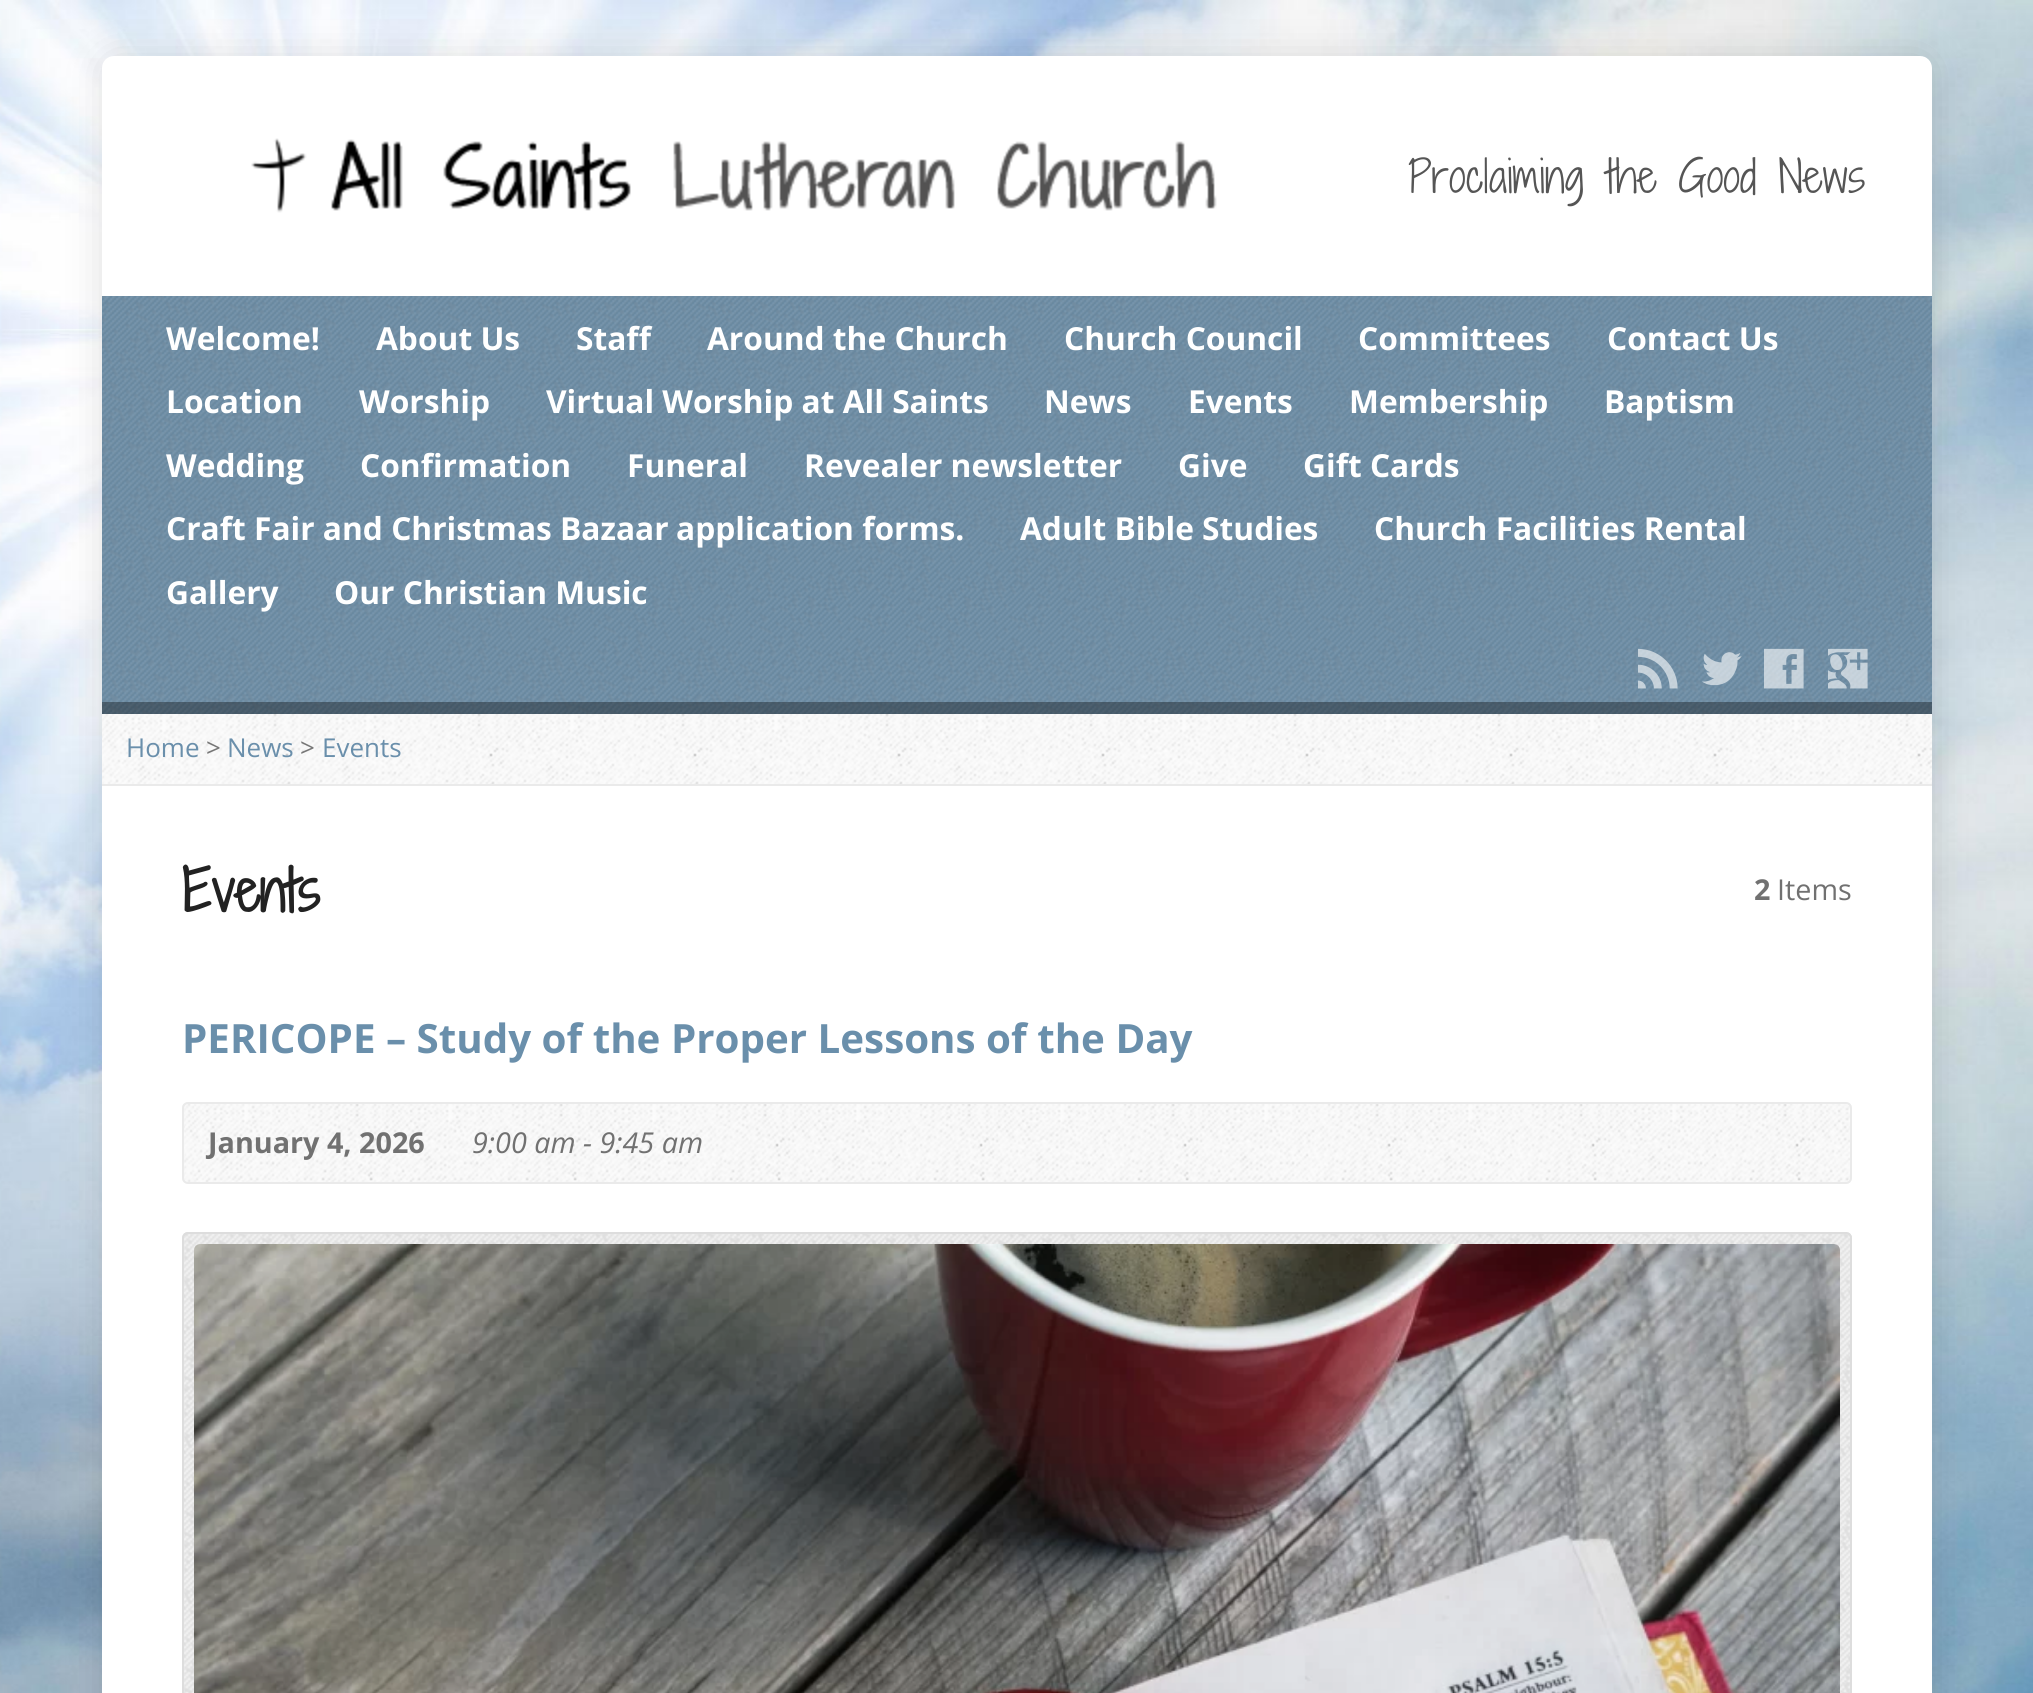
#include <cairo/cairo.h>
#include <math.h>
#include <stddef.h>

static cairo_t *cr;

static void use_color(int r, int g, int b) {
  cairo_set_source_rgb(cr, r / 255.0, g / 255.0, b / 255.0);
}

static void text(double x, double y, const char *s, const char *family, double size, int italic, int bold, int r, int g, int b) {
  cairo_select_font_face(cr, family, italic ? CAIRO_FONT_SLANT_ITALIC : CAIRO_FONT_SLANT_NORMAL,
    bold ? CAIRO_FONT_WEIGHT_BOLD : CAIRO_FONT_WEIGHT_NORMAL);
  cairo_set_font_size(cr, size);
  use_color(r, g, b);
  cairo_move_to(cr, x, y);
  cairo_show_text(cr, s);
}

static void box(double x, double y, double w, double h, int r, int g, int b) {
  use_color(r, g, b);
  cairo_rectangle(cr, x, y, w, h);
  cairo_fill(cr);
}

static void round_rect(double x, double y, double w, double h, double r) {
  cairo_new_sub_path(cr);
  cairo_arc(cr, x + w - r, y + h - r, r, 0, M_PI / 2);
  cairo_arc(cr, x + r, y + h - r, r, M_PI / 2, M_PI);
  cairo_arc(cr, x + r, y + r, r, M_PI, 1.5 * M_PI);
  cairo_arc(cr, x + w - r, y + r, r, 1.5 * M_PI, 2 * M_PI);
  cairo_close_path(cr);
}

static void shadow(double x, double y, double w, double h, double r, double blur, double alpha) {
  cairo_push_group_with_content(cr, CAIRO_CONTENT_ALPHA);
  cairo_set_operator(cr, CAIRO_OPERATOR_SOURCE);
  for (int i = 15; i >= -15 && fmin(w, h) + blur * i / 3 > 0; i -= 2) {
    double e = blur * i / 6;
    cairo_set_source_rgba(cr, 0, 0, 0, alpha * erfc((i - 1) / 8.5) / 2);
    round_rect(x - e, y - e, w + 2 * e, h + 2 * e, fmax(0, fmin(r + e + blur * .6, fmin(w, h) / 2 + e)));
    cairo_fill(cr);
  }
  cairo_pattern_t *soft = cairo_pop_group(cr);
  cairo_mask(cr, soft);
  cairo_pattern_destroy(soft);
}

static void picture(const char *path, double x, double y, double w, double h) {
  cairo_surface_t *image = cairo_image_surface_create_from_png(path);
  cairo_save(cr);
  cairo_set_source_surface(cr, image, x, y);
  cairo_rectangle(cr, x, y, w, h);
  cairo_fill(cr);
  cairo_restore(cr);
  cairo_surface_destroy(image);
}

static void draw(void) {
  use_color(255, 255, 255);
  cairo_paint(cr);
  picture("img_01.png", 0, 0, 2033, 1693);
  use_color(0, 0, 0);
  shadow(102, 56, 1830, 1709, 12, 20, 0.12);
  use_color(255, 255, 255);
  round_rect(102, 56, 1830, 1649, 12);
  cairo_fill(cr);
  picture("img_02.png", 251, 138, 966, 75);
  box(102, 296, 1830, 418, 106, 143, 171);
  picture("img_03.png", 102, 296, 1830, 418);
  picture("img_04.png", 1638, 648, 40, 41);
  picture("img_05.png", 1702, 652, 40, 34);
  picture("img_06.png", 1764, 648, 40, 41);
  picture("img_07.png", 1828, 648, 40, 41);
  cairo_set_source_rgba(cr, 0, 0, 0, 0.35);
  cairo_rectangle(cr, 102, 702, 1830, 12);
  cairo_fill(cr);
  picture("img_08.png", 102, 714, 1830, 70);
  box(102, 784, 1830, 2, 234, 234, 234);
  picture("img_09.png", 182, 1102, 1670, 82);
  round_rect(183, 1103, 1668, 80, 5);
  cairo_stroke(cr);
  picture("img_10.png", 182, 1232, 1670, 461);
  round_rect(183, 1233, 1668, 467, 5);
  use_color(221, 221, 221);
  cairo_stroke(cr);
  picture("img_11.png", 194, 1244, 1646, 449);
  text(1408, 193, "Proclaiming the Good News", "Shadows Into Light Two Light", 43.25, 0, 0, 85, 85, 85);
  text(166, 350, "Welcome!", "Open Sans", 31.7, 0, 1, 255, 255, 255);
  text(376, 350, "About Us", "Open Sans", 31.7, 0, 1, 255, 255, 255);
  text(576, 350, "Staff", "Open Sans", 31.7, 0, 1, 255, 255, 255);
  text(707, 350, "Around the Church", "Open Sans", 31.7, 0, 1, 255, 255, 255);
  text(1064, 350, "Church Council", "Open Sans", 31.7, 0, 1, 255, 255, 255);
  text(1358, 350, "Committees", "Open Sans", 31.7, 0, 1, 255, 255, 255);
  text(1607, 350, "Contact Us", "Open Sans", 31.7, 0, 1, 255, 255, 255);
  text(166, 413, "Location", "Open Sans", 31.7, 0, 1, 255, 255, 255);
  text(359, 413, "Worship", "Open Sans", 31.7, 0, 1, 255, 255, 255);
  text(546, 413, "Virtual Worship at All Saints", "Open Sans", 31.7, 0, 1, 255, 255, 255);
  text(1044, 413, "News", "Open Sans", 31.7, 0, 1, 255, 255, 255);
  text(1188, 413, "Events", "Open Sans", 31.7, 0, 1, 255, 255, 255);
  text(1349, 413, "Membership", "Open Sans", 31.7, 0, 1, 255, 255, 255);
  text(1604, 413, "Baptism", "Open Sans", 31.7, 0, 1, 255, 255, 255);
  text(166, 477, "Wedding", "Open Sans", 31.7, 0, 1, 255, 255, 255);
  text(360, 477, "Confirmation", "Open Sans", 31.7, 0, 1, 255, 255, 255);
  text(627, 477, "Funeral", "Open Sans", 31.7, 0, 1, 255, 255, 255);
  text(804, 477, "Revealer newsletter", "Open Sans", 31.7, 0, 1, 255, 255, 255);
  text(1178, 477, "Give", "Open Sans", 31.7, 0, 1, 255, 255, 255);
  text(1303, 477, "Gift Cards", "Open Sans", 31.7, 0, 1, 255, 255, 255);
  text(166, 540, "Craft Fair and Christmas Bazaar", "Open Sans", 31.7, 0, 1, 255, 255, 255);
  text(676, 540, "application forms.", "Open Sans", 31.7, 0, 1, 255, 255, 255);
  text(1020, 540, "Adult Bible Studies", "Open Sans", 31.7, 0, 1, 255, 255, 255);
  text(1374, 540, "Church Facilities Rental", "Open Sans", 31.7, 0, 1, 255, 255, 255);
  text(166, 604, "Gallery", "Open Sans", 31.7, 0, 1, 255, 255, 255);
  text(334, 604, "Our Christian Music", "Open Sans", 31.7, 0, 1, 255, 255, 255);
  text(126, 757, "Home", "Open Sans", 26, 0, 0, 106, 143, 171);
  text(206, 757, ">", "Open Sans", 26, 0, 0, 119, 119, 119);
  text(227, 757, "News", "Open Sans", 26, 0, 0, 106, 143, 171);
  text(300, 757, ">", "Open Sans", 26, 0, 0, 119, 119, 119);
  text(322, 757, "Events", "Open Sans", 26, 0, 0, 106, 143, 171);
  text(182, 912, "Events", "Shadows Into Light Two", 55, 0, 1, 34, 34, 34);
  text(1754, 900, "2", "Open Sans", 28.75, 0, 1, 113, 113, 113);
  text(1777, 900, "Items", "Open Sans", 28.75, 0, 0, 113, 113, 113);
  text(182, 1053, "PERICOPE – Study of the Proper Lessons of the Day", "Open Sans", 40.3, 0, 1, 106, 143, 171);
  text(208, 1153, "January 4, 2026", "Open Sans", 28.75, 0, 1, 113, 113, 113);
  text(472, 1153, "9:00 am - 9:45 am", "Open Sans", 28.75, 1, 0, 113, 113, 113);
}

int main(void) {
  cairo_surface_t *surface = cairo_image_surface_create(CAIRO_FORMAT_RGB24, 2033, 1693);
  cr = cairo_create(surface);
  cairo_font_options_t *options = cairo_font_options_create();
  cairo_font_options_set_hint_metrics(options, CAIRO_HINT_METRICS_OFF);
  cairo_font_options_set_hint_style(options, CAIRO_HINT_STYLE_NONE);
  cairo_set_font_options(cr, options);
  cairo_set_miter_limit(cr, 4);
  draw();
  cairo_surface_write_to_png(surface, "out.png");
  cairo_font_options_destroy(options);
  cairo_destroy(cr);
  cairo_surface_destroy(surface);
  return 0;
}
